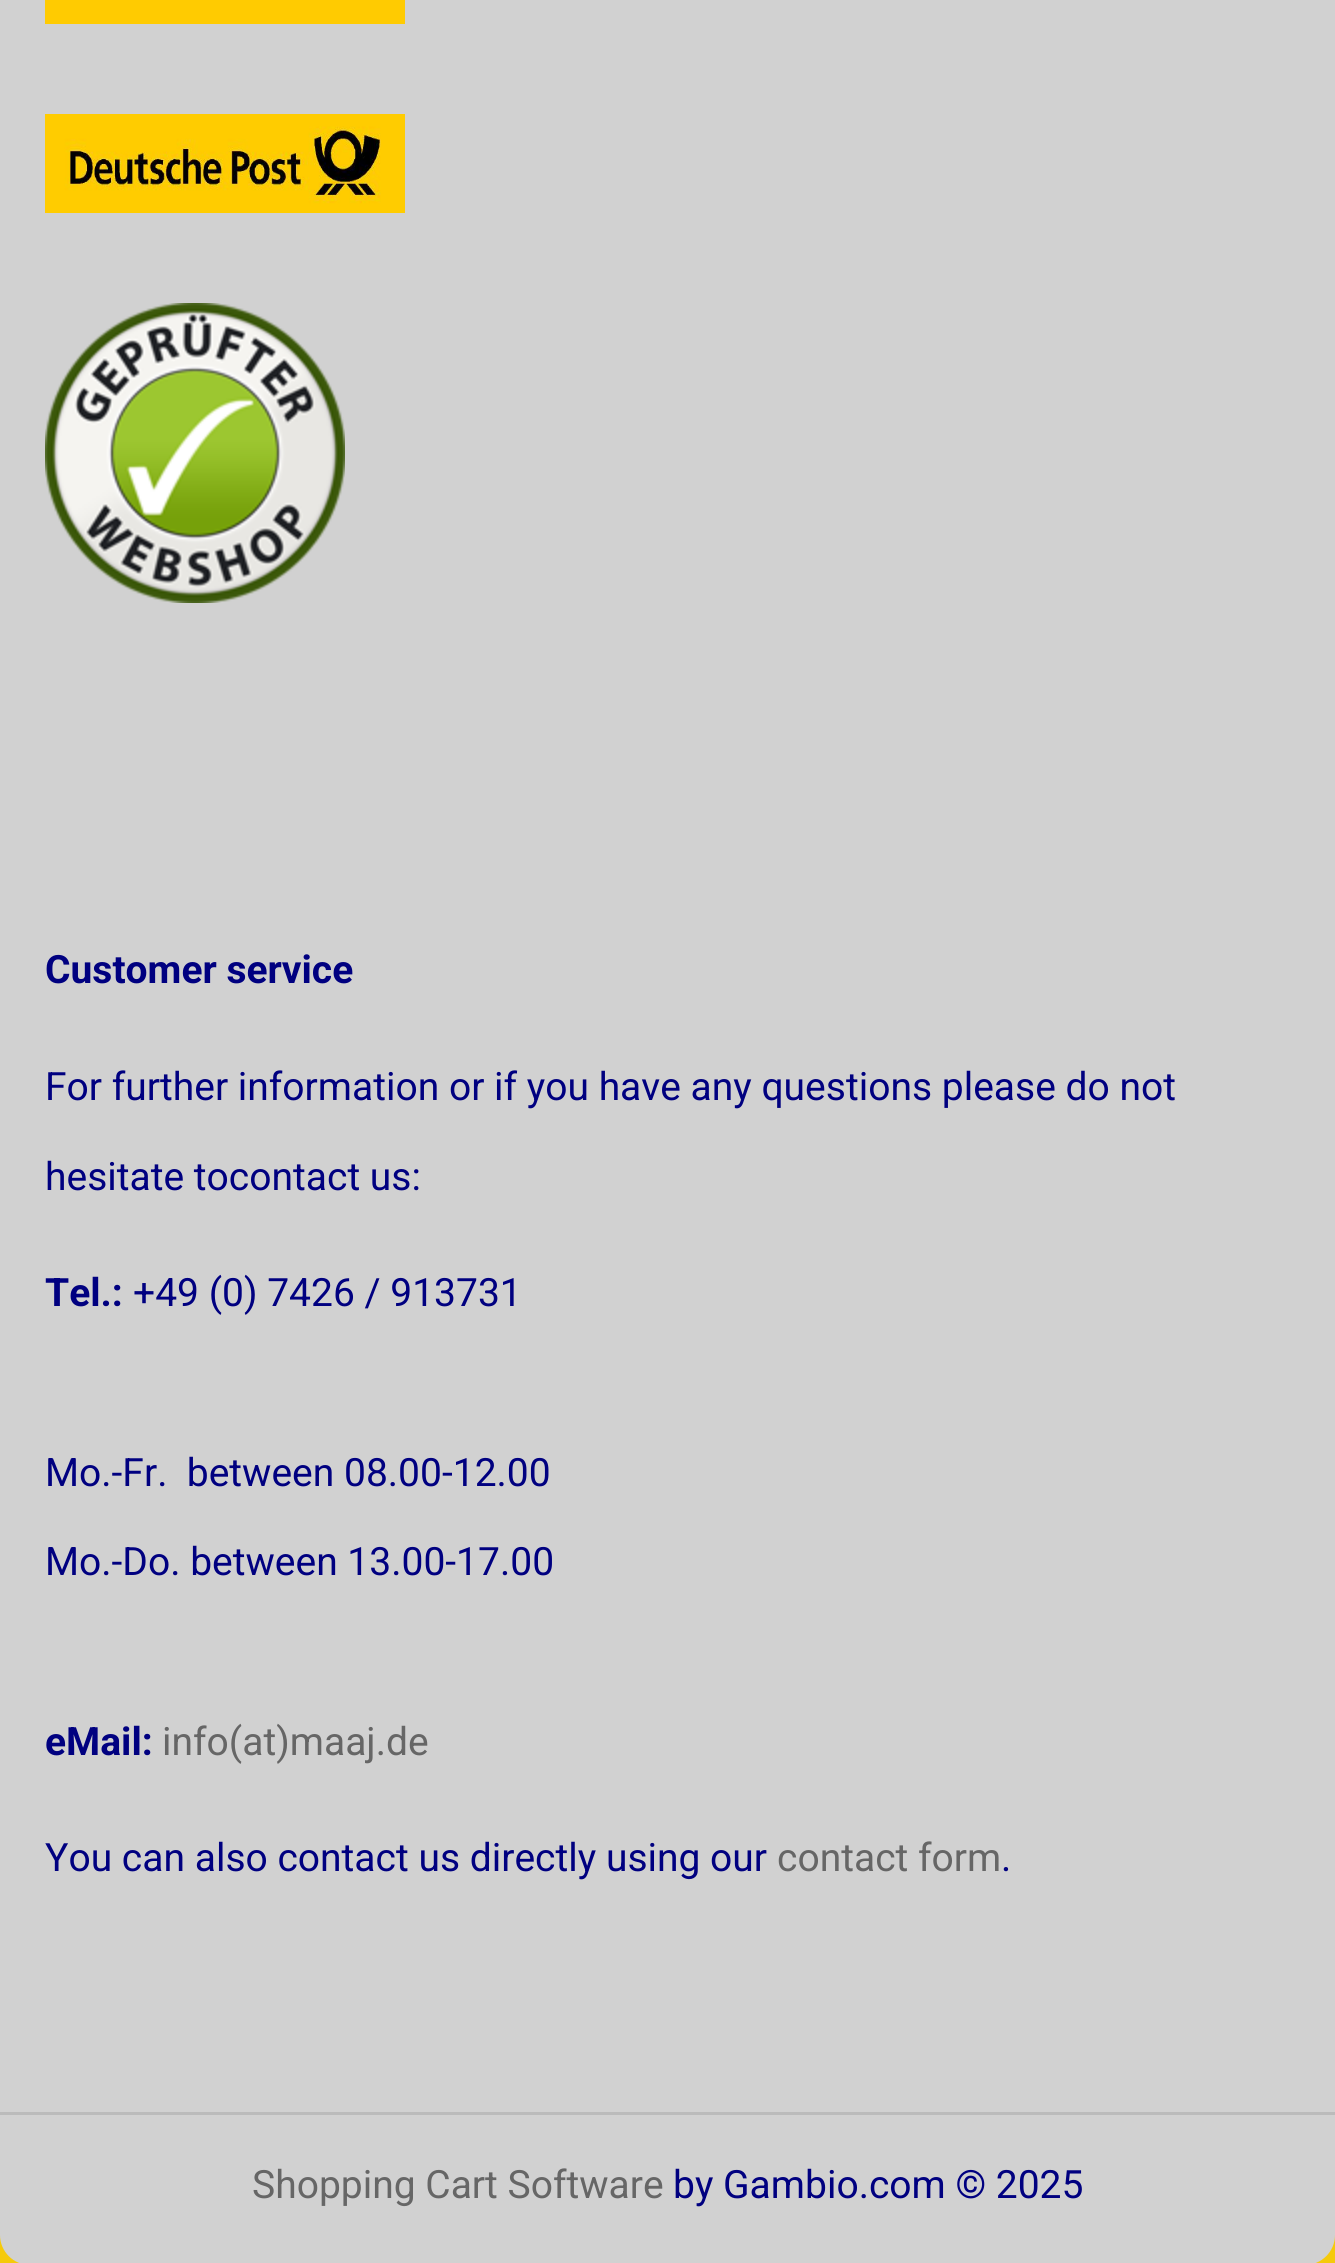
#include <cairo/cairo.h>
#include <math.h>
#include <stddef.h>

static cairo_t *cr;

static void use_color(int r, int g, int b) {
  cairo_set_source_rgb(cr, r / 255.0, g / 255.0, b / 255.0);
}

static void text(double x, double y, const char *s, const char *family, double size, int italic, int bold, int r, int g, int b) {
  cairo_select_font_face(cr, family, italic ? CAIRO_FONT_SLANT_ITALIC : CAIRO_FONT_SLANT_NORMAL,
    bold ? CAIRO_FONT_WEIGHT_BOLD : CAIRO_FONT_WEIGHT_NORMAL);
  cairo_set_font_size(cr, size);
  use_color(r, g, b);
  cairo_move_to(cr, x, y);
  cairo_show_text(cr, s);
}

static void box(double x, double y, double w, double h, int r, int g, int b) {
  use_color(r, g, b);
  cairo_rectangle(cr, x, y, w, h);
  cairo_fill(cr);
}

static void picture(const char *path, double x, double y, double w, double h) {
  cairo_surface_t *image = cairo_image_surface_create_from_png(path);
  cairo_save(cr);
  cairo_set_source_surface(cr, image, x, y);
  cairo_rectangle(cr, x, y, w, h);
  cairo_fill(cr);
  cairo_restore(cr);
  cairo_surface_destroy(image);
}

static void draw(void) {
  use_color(245, 202, 11);
  cairo_paint(cr);
  use_color(209, 209, 209);
  cairo_new_path(cr);
  cairo_move_to(cr, 0, -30);
  cairo_line_to(cr, 1335, -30);
  cairo_line_to(cr, 1335, 2235);
  cairo_curve_to(cr, 1335, 2251.5, 1321.5, 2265, 1305, 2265);
  cairo_line_to(cr, 30, 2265);
  cairo_curve_to(cr, 13.5, 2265, 0, 2251.5, 0, 2235);
  cairo_close_path(cr);
  cairo_fill(cr);
  box(0, 2112, 1335, 3, 187, 187, 187);
  box(45, 0, 360, 24, 255, 203, 1);
  picture("img_01.png", 45, 114, 360, 99);
  picture("img_02.png", 45, 303, 300, 300);
  text(45, 983, "Customer service", "Roboto", 39, 0, 1, 0, 0, 128);
  text(45, 1100, "For further information or if you have any questions please do not", "Roboto", 39, 0, 0, 0, 0, 128);
  text(45, 1190, "hesitate tocontact us:", "Roboto", 39, 0, 0, 0, 0, 128);
  text(45, 1306, "Tel.:", "Roboto", 39, 0, 1, 0, 0, 128);
  text(133, 1306, "+49 (0) 7426 / 913731", "Roboto", 39, 0, 0, 0, 0, 128);
  text(45, 1486, "Mo.-Fr.  between 08.00-12.00", "Roboto", 39, 0, 0, 0, 0, 128);
  text(45, 1575, "Mo.-Do. between 13.00-17.00", "Roboto", 39, 0, 0, 0, 0, 128);
  text(45, 1755, "eMail:", "Roboto", 39, 0, 1, 0, 0, 128);
  text(162, 1755, "info(at)maaj.de", "Roboto", 39, 0, 0, 102, 102, 102);
  text(45, 1871, "You can also contact us directly using our", "Roboto", 39, 0, 0, 0, 0, 128);
  text(777, 1871, "contact form", "Roboto", 39, 0, 0, 102, 102, 102);
  text(1001, 1871, ".", "Roboto", 39, 0, 0, 0, 0, 128);
  text(252, 2198, "Shopping Cart Software", "Roboto", 39, 0, 0, 102, 102, 102);
  text(673, 2198, "by Gambio.com © 2025", "Roboto", 39, 0, 0, 0, 0, 128);
}

int main(void) {
  cairo_surface_t *surface = cairo_image_surface_create(CAIRO_FORMAT_RGB24, 1335, 2263);
  cr = cairo_create(surface);
  cairo_font_options_t *options = cairo_font_options_create();
  cairo_font_options_set_hint_metrics(options, CAIRO_HINT_METRICS_OFF);
  cairo_font_options_set_hint_style(options, CAIRO_HINT_STYLE_NONE);
  cairo_set_font_options(cr, options);
  cairo_set_miter_limit(cr, 4);
  draw();
  cairo_surface_write_to_png(surface, "out.png");
  cairo_font_options_destroy(options);
  cairo_destroy(cr);
  cairo_surface_destroy(surface);
  return 0;
}
